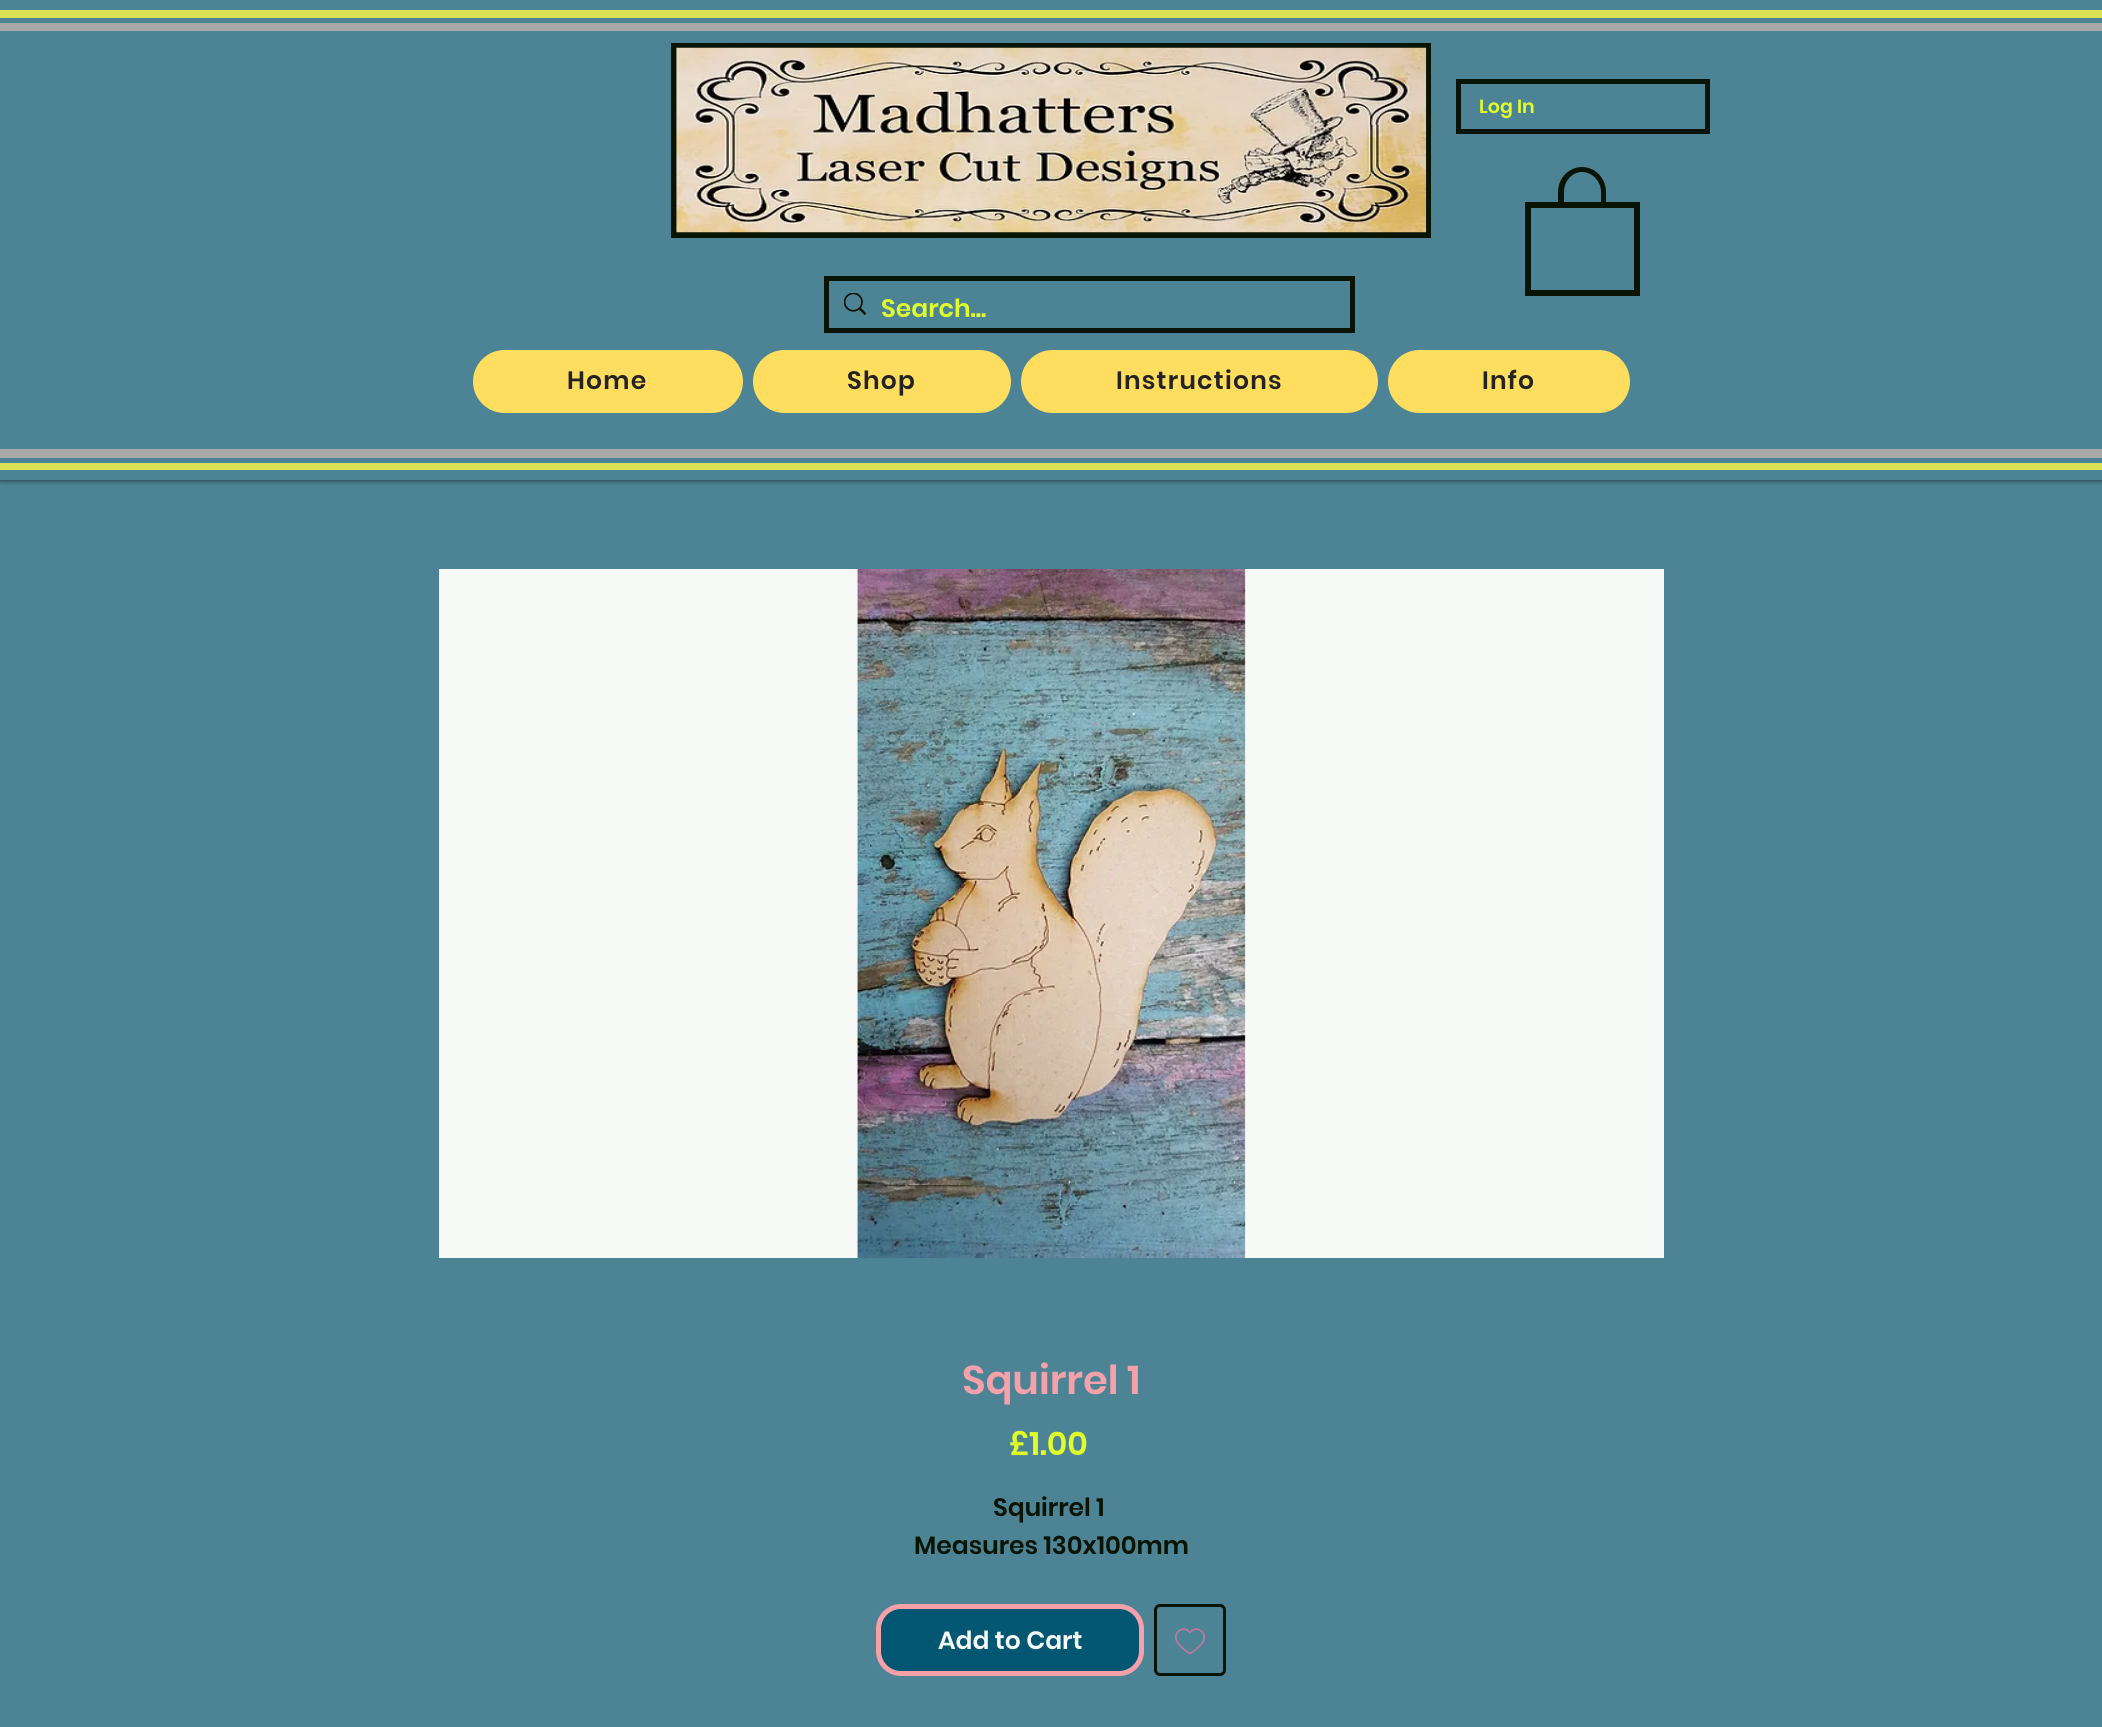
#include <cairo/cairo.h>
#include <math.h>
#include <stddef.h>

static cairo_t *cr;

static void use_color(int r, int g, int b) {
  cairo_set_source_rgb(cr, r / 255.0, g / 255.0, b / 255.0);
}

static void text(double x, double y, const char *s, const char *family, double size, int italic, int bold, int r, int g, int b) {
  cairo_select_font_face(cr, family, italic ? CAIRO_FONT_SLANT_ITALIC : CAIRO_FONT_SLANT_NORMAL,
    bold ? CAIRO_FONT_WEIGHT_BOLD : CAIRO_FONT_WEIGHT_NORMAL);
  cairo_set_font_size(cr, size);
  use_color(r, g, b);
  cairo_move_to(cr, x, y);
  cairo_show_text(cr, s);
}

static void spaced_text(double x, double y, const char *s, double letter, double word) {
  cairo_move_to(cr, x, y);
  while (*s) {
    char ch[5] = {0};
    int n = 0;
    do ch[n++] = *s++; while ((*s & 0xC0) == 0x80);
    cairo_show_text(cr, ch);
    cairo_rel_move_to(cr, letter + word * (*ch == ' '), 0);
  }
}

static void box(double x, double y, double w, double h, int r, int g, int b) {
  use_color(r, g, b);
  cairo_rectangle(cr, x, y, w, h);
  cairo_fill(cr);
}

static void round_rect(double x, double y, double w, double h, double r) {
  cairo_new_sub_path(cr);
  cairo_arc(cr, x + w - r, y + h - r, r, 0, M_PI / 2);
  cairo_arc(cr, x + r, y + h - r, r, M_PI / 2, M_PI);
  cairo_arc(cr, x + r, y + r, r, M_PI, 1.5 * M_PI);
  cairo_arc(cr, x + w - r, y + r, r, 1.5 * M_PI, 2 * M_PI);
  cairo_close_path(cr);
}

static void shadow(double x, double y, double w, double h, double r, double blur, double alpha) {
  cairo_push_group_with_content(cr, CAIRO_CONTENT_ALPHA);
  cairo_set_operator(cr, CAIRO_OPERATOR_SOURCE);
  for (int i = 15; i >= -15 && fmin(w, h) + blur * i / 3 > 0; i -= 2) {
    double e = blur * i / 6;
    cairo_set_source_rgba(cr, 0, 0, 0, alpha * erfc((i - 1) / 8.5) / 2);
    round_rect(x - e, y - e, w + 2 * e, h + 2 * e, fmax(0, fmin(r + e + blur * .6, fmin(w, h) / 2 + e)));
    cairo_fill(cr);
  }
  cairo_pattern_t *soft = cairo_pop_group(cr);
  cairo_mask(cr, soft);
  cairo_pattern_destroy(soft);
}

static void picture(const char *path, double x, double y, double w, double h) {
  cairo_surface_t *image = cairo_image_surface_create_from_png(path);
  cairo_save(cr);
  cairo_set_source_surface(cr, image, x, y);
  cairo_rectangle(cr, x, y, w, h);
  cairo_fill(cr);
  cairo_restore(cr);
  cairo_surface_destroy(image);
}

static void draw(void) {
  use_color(77, 132, 149);
  cairo_paint(cr);
  cairo_save(cr);
  cairo_rectangle(cr, 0, 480, 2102, 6);
  cairo_clip(cr);
  use_color(0, 0, 0);
  shadow(0, 0, 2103, 480, 0, 3, 0.7);
  cairo_restore(cr);
  box(0, 10, 2102, 8, 218, 227, 86);
  box(0, 463, 2102, 7, 218, 227, 86);
  box(0, 23, 2102, 8, 169, 169, 169);
  box(0, 449, 2102, 9, 169, 169, 169);
  box(671, 43, 760, 195, 9, 20, 5);
  picture("img_01.png", 676, 47, 751, 186);
  cairo_rectangle(cr, 1458.5, 81.5, 249, 50);
  cairo_set_line_width(cr, 5);
  cairo_stroke(cr);
  cairo_new_path(cr);
  cairo_move_to(cr, 1582, 167);
  cairo_curve_to(cr, 1569, 167, 1558, 178, 1558, 192);
  cairo_line_to(cr, 1558, 204);
  cairo_line_to(cr, 1564, 204);
  cairo_line_to(cr, 1564, 192);
  cairo_curve_to(cr, 1564, 181, 1572, 172, 1582, 172);
  cairo_curve_to(cr, 1592, 172, 1601, 181, 1601, 192);
  cairo_line_to(cr, 1601, 204);
  cairo_line_to(cr, 1605, 204);
  cairo_line_to(cr, 1605, 203);
  cairo_line_to(cr, 1606, 203);
  cairo_line_to(cr, 1606, 192);
  cairo_curve_to(cr, 1606, 178, 1595, 167, 1582, 167);
  cairo_close_path(cr);
  cairo_fill(cr);
  cairo_new_path(cr);
  cairo_move_to(cr, 1634, 208);
  cairo_line_to(cr, 1634, 290);
  cairo_line_to(cr, 1531, 290);
  cairo_line_to(cr, 1531, 208);
  cairo_line_to(cr, 1634, 208);
  cairo_move_to(cr, 1640, 202);
  cairo_line_to(cr, 1525, 202);
  cairo_line_to(cr, 1525, 296);
  cairo_line_to(cr, 1640, 296);
  cairo_close_path(cr);
  cairo_fill(cr);
  cairo_rectangle(cr, 826.5, 278.5, 526, 52);
  cairo_stroke(cr);
  picture("img_02.png", 844, 293, 22, 22);
  use_color(255, 222, 95);
  round_rect(473, 350, 270, 63, 31.5);
  cairo_fill(cr);
  round_rect(753, 350, 258, 63, 31.5);
  cairo_fill(cr);
  round_rect(1021, 350, 357, 63, 31.5);
  cairo_fill(cr);
  round_rect(1388, 350, 242, 63, 31.5);
  cairo_fill(cr);
  box(439, 569, 1225, 689, 246, 249, 245);
  picture("img_03.png", 857, 569, 389, 689);
  use_color(3, 87, 114);
  round_rect(878.5, 1606.5, 263, 67, 22.5);
  cairo_fill_preserve(cr);
  use_color(246, 160, 169);
  cairo_stroke(cr);
  round_rect(1155.5, 1605.5, 69, 69, 4.5);
  use_color(9, 20, 5);
  cairo_set_line_width(cr, 3);
  cairo_stroke(cr);
  picture("img_04.png", 1175, 1628, 30, 27);
  text(1479, 113, "Log In", "Poppins SemiBold", 19, 0, 0, 224, 253, 44);
  text(881, 317, "Search...", "Poppins SemiBold", 25, 0, 0, 224, 253, 44);
  use_color(36, 35, 35);
  spaced_text(567, 389, "Home", 1.25, 0);
  spaced_text(847, 389, "Shop", 1.25, 0);
  spaced_text(1116, 389, "Instructions", 1.25, 0);
  spaced_text(1482, 389, "Info", 1.25, 0);
  text(962, 1394, "Squirrel 1", "Poppins SemiBold", 40, 0, 0, 246, 160, 169);
  text(1009, 1455, "£1.00", "Poppins SemiBold", 32.5, 0, 0, 224, 253, 44);
  text(993, 1516, "Squirrel 1", "Poppins SemiBold", 25, 0, 0, 9, 20, 5);
  text(914, 1554, "Measures 130x100mm", "Poppins SemiBold", 25, 0, 0, 9, 20, 5);
  text(938, 1649, "Add to Cart", "Poppins SemiBold", 25, 0, 0, 246, 249, 245);
}

int main(void) {
  cairo_surface_t *surface = cairo_image_surface_create(CAIRO_FORMAT_RGB24, 2102, 1727);
  cr = cairo_create(surface);
  cairo_font_options_t *options = cairo_font_options_create();
  cairo_font_options_set_hint_metrics(options, CAIRO_HINT_METRICS_OFF);
  cairo_font_options_set_hint_style(options, CAIRO_HINT_STYLE_NONE);
  cairo_set_font_options(cr, options);
  cairo_set_miter_limit(cr, 4);
  draw();
  cairo_surface_write_to_png(surface, "out.png");
  cairo_font_options_destroy(options);
  cairo_destroy(cr);
  cairo_surface_destroy(surface);
  return 0;
}
